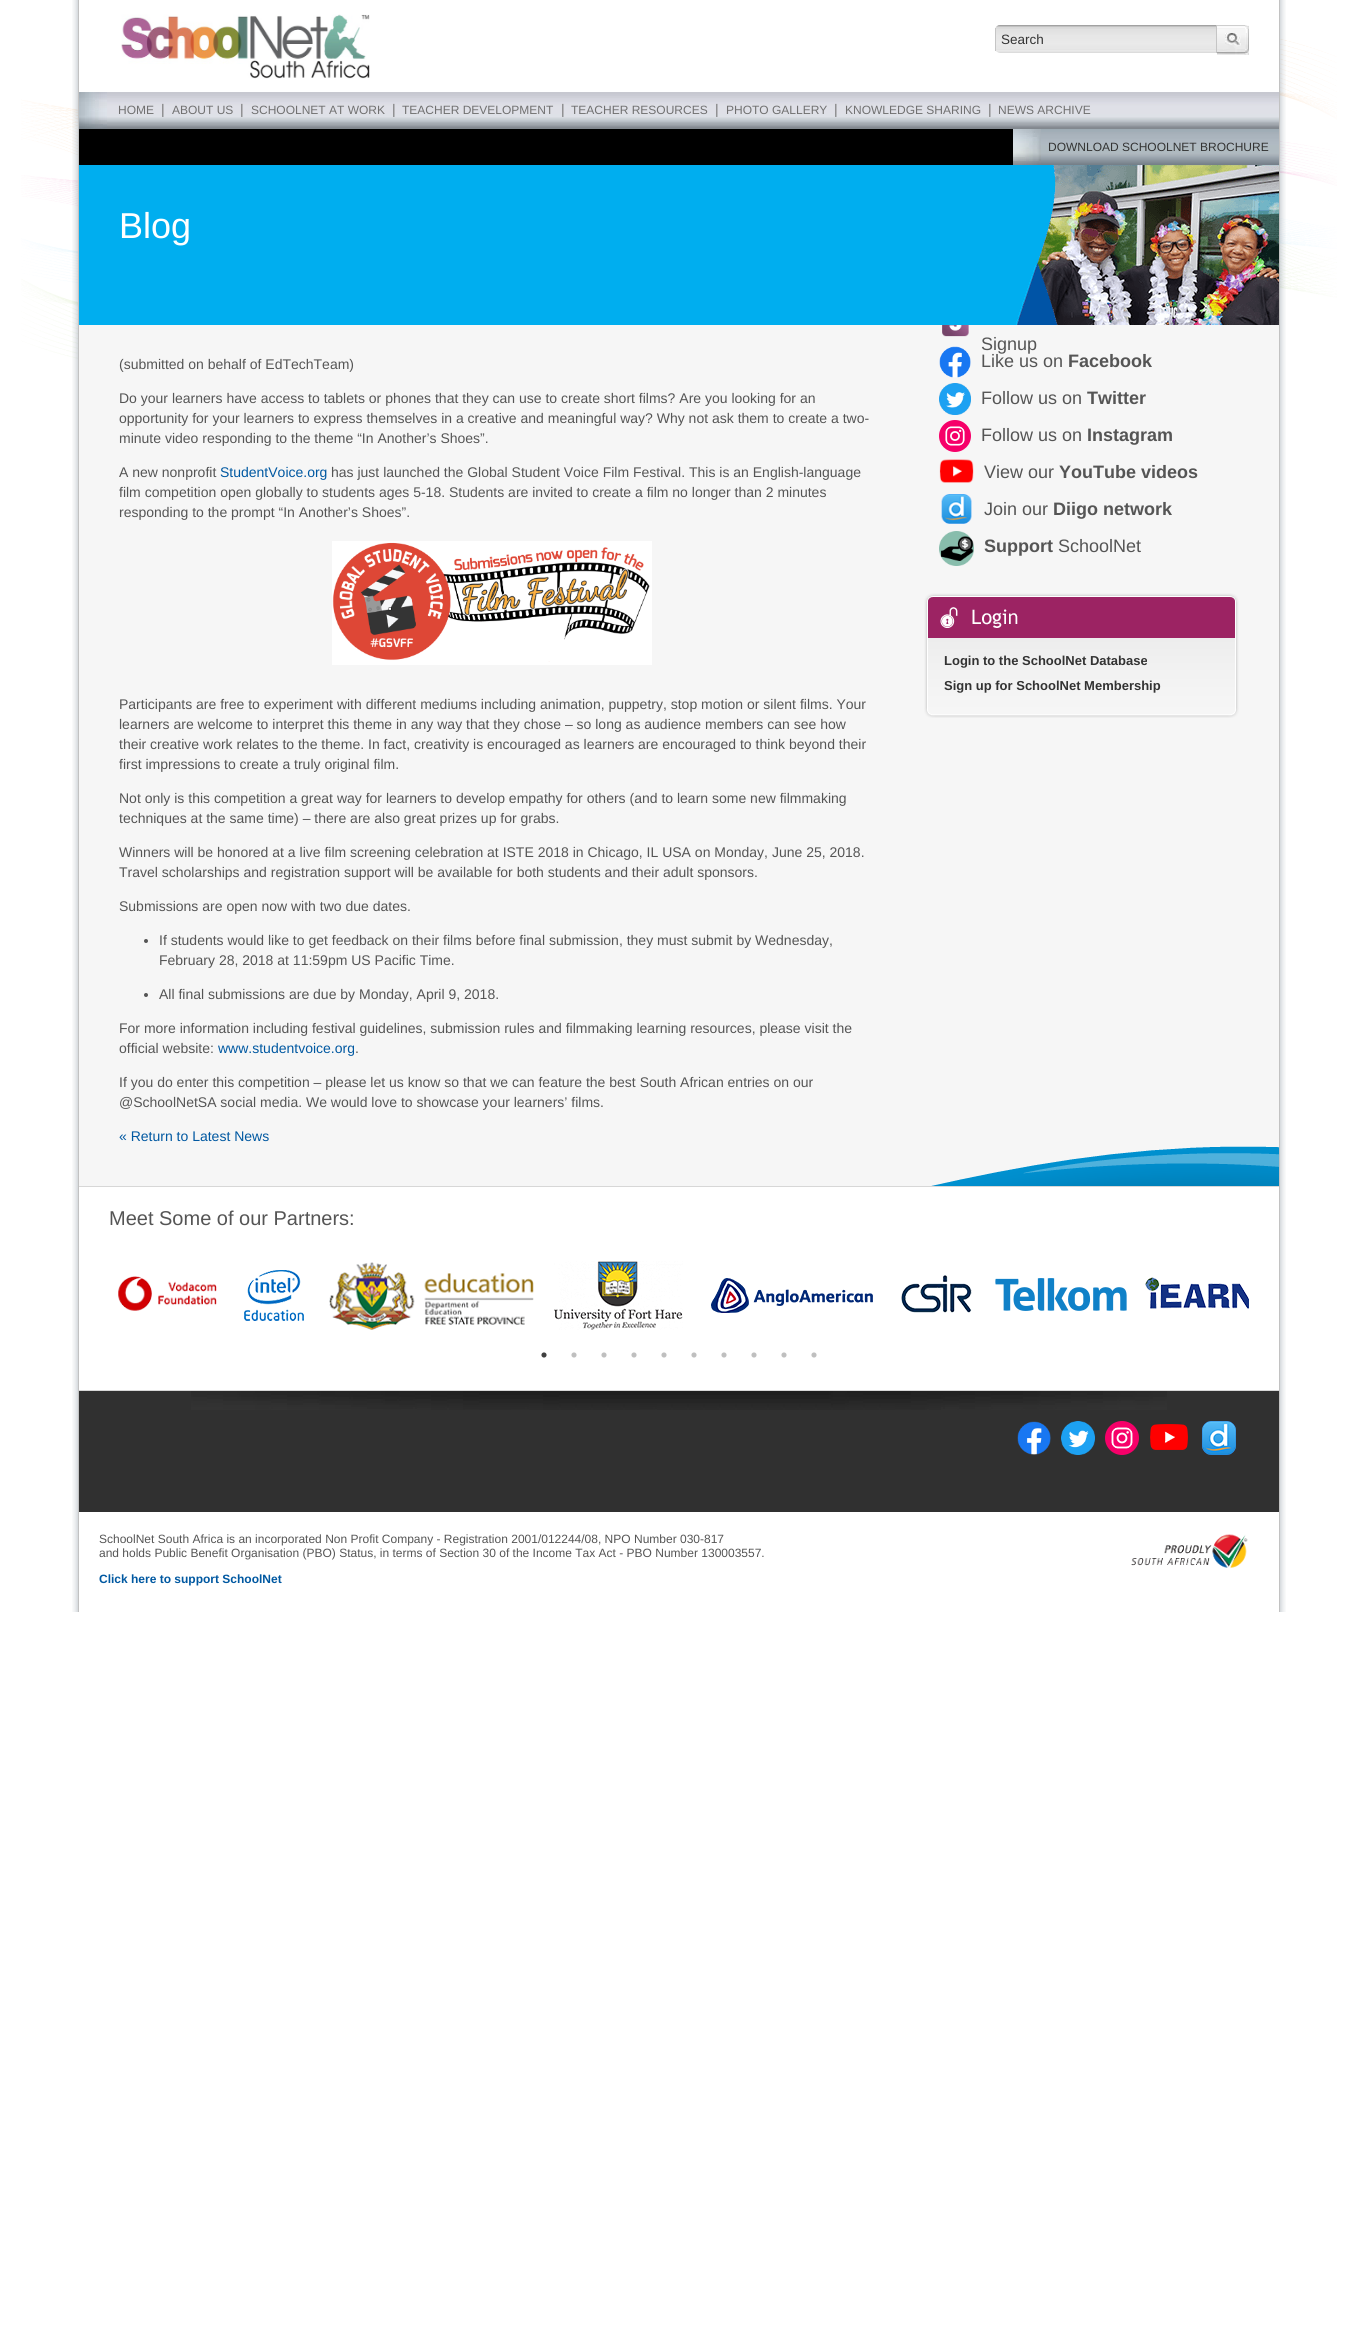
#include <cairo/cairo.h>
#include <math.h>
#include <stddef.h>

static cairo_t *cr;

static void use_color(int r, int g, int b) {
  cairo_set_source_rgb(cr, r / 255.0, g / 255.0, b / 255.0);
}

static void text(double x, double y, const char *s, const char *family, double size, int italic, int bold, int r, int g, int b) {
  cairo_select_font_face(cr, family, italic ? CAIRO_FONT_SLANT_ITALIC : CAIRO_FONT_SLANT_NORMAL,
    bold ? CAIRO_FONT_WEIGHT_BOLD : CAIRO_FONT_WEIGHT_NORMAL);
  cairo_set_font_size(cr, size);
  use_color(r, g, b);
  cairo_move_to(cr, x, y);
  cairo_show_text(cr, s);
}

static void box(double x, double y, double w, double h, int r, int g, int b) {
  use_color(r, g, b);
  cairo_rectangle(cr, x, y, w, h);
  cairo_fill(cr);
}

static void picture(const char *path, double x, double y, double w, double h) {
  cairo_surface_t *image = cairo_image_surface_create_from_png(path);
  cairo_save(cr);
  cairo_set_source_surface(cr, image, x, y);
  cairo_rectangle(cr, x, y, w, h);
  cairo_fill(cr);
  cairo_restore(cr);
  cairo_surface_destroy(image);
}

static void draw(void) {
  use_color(255, 255, 255);
  cairo_paint(cr);
  picture("img_01.png", 21, 39, 1316, 320);
  picture("img_02.png", 72, 0, 1214, 1612);
  box(79, 39, 1200, 320, 255, 255, 255);
  picture("img_03.png", 121, 14, 249, 65);
  picture("img_04.png", 995, 25, 221, 28);
  box(1216, 25, 1, 28, 197, 197, 197);
  box(995, 28, 1, 23, 197, 197, 197);
  picture("img_05.png", 1217, 25, 32, 30);
  picture("img_06.png", 107, 92, 1172, 37);
  picture("img_07.png", 79, 92, 28, 37);
  picture("img_08.png", 1013, 129, 266, 36);
  box(79, 129, 934, 36, 0, 0, 0);
  picture("img_09.png", 79, 165, 1200, 160);
  box(79, 325, 1200, 861, 246, 246, 246);
  picture("img_10.png", 332, 541, 320, 124);
  use_color(85, 85, 85);
  cairo_arc(cr, 146, 941, 2, 0, 2 * M_PI);
  cairo_fill(cr);
  cairo_arc(cr, 146, 995, 2, 0, 2 * M_PI);
  cairo_fill(cr);
  picture("img_11.png", 942, 325, 27, 12);
  picture("img_12.png", 939, 346, 32, 32);
  picture("img_13.png", 939, 383, 32, 32);
  use_color(246, 0, 105);
  cairo_arc(cr, 955, 436, 16, 0, 2 * M_PI);
  cairo_fill(cr);
  picture("img_14.png", 945, 426, 20, 20);
  picture("img_15.png", 939, 459, 35, 24);
  picture("img_16.png", 941, 494, 31, 30);
  picture("img_17.png", 939, 531, 35, 35);
  picture("img_18.png", 924, 593, 315, 125);
  picture("img_19.png", 931, 1146, 348, 40);
  box(79, 1186, 1200, 1, 215, 215, 215);
  box(79, 1390, 1200, 1, 215, 215, 215);
  picture("img_20.png", 118, 1276, 99, 35);
  picture("img_21.png", 244, 1270, 60, 51);
  picture("img_22.png", 329, 1262, 205, 68);
  picture("img_23.png", 554, 1261, 129, 69);
  picture("img_24.png", 711, 1278, 162, 35);
  picture("img_25.png", 901, 1275, 71, 38);
  picture("img_26.png", 995, 1278, 132, 33);
  picture("img_27.png", 1145, 1277, 104, 32);
  picture("img_28.png", 541, 1352, 6, 6);
  picture("img_29.png", 571, 1352, 6, 6);
  picture("img_29.png", 601, 1352, 6, 6);
  picture("img_29.png", 631, 1352, 6, 6);
  picture("img_29.png", 661, 1352, 6, 6);
  picture("img_29.png", 691, 1352, 6, 6);
  picture("img_29.png", 721, 1352, 6, 6);
  picture("img_29.png", 751, 1352, 6, 6);
  picture("img_29.png", 781, 1352, 6, 6);
  picture("img_29.png", 811, 1352, 6, 6);
  box(79, 1391, 1200, 121, 48, 48, 48);
  picture("img_30.png", 191, 1391, 976, 19);
  picture("img_31.png", 1017, 1421, 34, 34);
  picture("img_32.png", 1061, 1421, 34, 34);
  use_color(246, 0, 105);
  cairo_arc(cr, 1122, 1438, 17, 0, 2 * M_PI);
  cairo_fill(cr);
  picture("img_33.png", 1111, 1427, 22, 22);
  picture("img_34.png", 1150, 1424, 38, 26);
  picture("img_35.png", 1202, 1421, 34, 34);
  picture("img_36.png", 1131, 1534, 117, 34);
  text(1001, 44, "Search", "Liberation Sans", 13.5, 0, 0, 51, 51, 51);
  text(118, 114, "HOME", "Liberation Sans", 12, 0, 0, 112, 112, 112);
  text(161, 114, "|", "Liberation Sans", 14, 0, 0, 119, 119, 119);
  text(172, 114, "ABOUT US", "Liberation Sans", 12, 0, 0, 112, 112, 112);
  text(240, 114, "|", "Liberation Sans", 14, 0, 0, 119, 119, 119);
  text(251, 114, "SCHOOLNET AT WORK", "Liberation Sans", 12, 0, 0, 112, 112, 112);
  text(392, 114, "|", "Liberation Sans", 14, 0, 0, 119, 119, 119);
  text(402, 114, "TEACHER DEVELOPMENT", "Liberation Sans", 12, 0, 0, 112, 112, 112);
  text(561, 114, "|", "Liberation Sans", 14, 0, 0, 119, 119, 119);
  text(571, 114, "TEACHER RESOURCES", "Liberation Sans", 12, 0, 0, 112, 112, 112);
  text(715, 114, "|", "Liberation Sans", 14, 0, 0, 119, 119, 119);
  text(726, 114, "PHOTO GALLERY", "Liberation Sans", 12, 0, 0, 112, 112, 112);
  text(834, 114, "|", "Liberation Sans", 14, 0, 0, 119, 119, 119);
  text(845, 114, "KNOWLEDGE SHARING", "Liberation Sans", 12, 0, 0, 112, 112, 112);
  text(988, 114, "|", "Liberation Sans", 14, 0, 0, 119, 119, 119);
  text(998, 114, "NEWS ARCHIVE", "Liberation Sans", 12, 0, 0, 112, 112, 112);
  text(1048, 151, "DOWNLOAD SCHOOLNET BROCHURE", "Liberation Sans", 12, 0, 0, 51, 51, 51);
  text(119, 238, "Blog", "Liberation Sans", 36, 0, 0, 255, 255, 255);
  text(119, 369, "(submitted on behalf of EdTechTeam)", "Liberation Sans", 14, 0, 0, 85, 85, 85);
  text(119, 403, "Do your learners have access to tablets or phones that they can use to create short films? Are you looking for an", "Liberation Sans", 14, 0, 0, 85, 85, 85);
  text(119, 423, "opportunity for your learners to express themselves in a creative and meaningful way? Why not ask them to create a two-", "Liberation Sans", 14, 0, 0, 85, 85, 85);
  text(119, 443, "minute video responding to the theme “In Another’s Shoes”.", "Liberation Sans", 14, 0, 0, 85, 85, 85);
  text(119, 477, "A new nonprofit", "Liberation Sans", 14, 0, 0, 85, 85, 85);
  text(220, 477, "StudentVoice.org", "Liberation Sans", 14, 0, 0, 0, 88, 161);
  text(331, 477, "has just launched the Global Student Voice Film Festival. This is an English-language", "Liberation Sans", 14, 0, 0, 85, 85, 85);
  text(119, 497, "film competition open globally to students ages 5-18. Students are invited to create a film no longer than 2 minutes", "Liberation Sans", 14, 0, 0, 85, 85, 85);
  text(119, 517, "responding to the prompt “In Another’s Shoes”.", "Liberation Sans", 14, 0, 0, 85, 85, 85);
  text(119, 709, "Participants are free to experiment with different mediums including animation, puppetry, stop motion or silent films. Your", "Liberation Sans", 14, 0, 0, 85, 85, 85);
  text(119, 729, "learners are welcome to interpret this theme in any way that they chose – so long as audience members can see how", "Liberation Sans", 14, 0, 0, 85, 85, 85);
  text(119, 749, "their creative work relates to the theme. In fact, creativity is encouraged as learners are encouraged to think beyond their", "Liberation Sans", 14, 0, 0, 85, 85, 85);
  text(119, 769, "first impressions to create a truly original film.", "Liberation Sans", 14, 0, 0, 85, 85, 85);
  text(119, 803, "Not only is this competition a great way for learners to develop empathy for others (and to learn some new filmmaking", "Liberation Sans", 14, 0, 0, 85, 85, 85);
  text(119, 823, "techniques at the same time) – there are also great prizes up for grabs.", "Liberation Sans", 14, 0, 0, 85, 85, 85);
  text(119, 857, "Winners will be honored at a live film screening celebration at ISTE 2018 in Chicago, IL USA on Monday, June 25, 2018.", "Liberation Sans", 14, 0, 0, 85, 85, 85);
  text(119, 877, "Travel scholarships and registration support will be available for both students and their adult sponsors.", "Liberation Sans", 14, 0, 0, 85, 85, 85);
  text(119, 911, "Submissions are open now with two due dates.", "Liberation Sans", 14, 0, 0, 85, 85, 85);
  text(159, 945, "If students would like to get feedback on their films before final submission, they must submit by Wednesday,", "Liberation Sans", 14, 0, 0, 85, 85, 85);
  text(159, 965, "February 28, 2018 at 11:59pm US Pacific Time.", "Liberation Sans", 14, 0, 0, 85, 85, 85);
  text(159, 999, "All final submissions are due by Monday, April 9, 2018.", "Liberation Sans", 14, 0, 0, 85, 85, 85);
  text(119, 1033, "For more information including festival guidelines, submission rules and filmmaking learning resources, please visit the", "Liberation Sans", 14, 0, 0, 85, 85, 85);
  text(119, 1053, "official website:", "Liberation Sans", 14, 0, 0, 85, 85, 85);
  text(218, 1053, "www.studentvoice.org", "Liberation Sans", 14, 0, 0, 0, 88, 161);
  text(355, 1053, ".", "Liberation Sans", 14, 0, 0, 85, 85, 85);
  text(119, 1087, "If you do enter this competition – please let us know so that we can feature the best South African entries on our", "Liberation Sans", 14, 0, 0, 85, 85, 85);
  text(119, 1107, "@SchoolNetSA social media. We would love to showcase your learners’ films.", "Liberation Sans", 14, 0, 0, 85, 85, 85);
  text(119, 1141, "« Return to Latest News", "Liberation Sans", 14, 0, 0, 0, 88, 161);
  text(981, 350, "Signup", "Liberation Sans", 18, 0, 0, 85, 85, 85);
  text(981, 367, "Like us on", "Liberation Sans", 18, 0, 0, 85, 85, 85);
  text(1068, 367, "Facebook", "Liberation Sans", 18, 0, 1, 85, 85, 85);
  text(981, 404, "Follow us on", "Liberation Sans", 18, 0, 0, 85, 85, 85);
  text(1087, 404, "Twitter", "Liberation Sans", 18, 0, 1, 85, 85, 85);
  text(981, 441, "Follow us on", "Liberation Sans", 18, 0, 0, 85, 85, 85);
  text(1087, 441, "Instagram", "Liberation Sans", 18, 0, 1, 85, 85, 85);
  text(984, 478, "View our", "Liberation Sans", 18, 0, 0, 85, 85, 85);
  text(1059, 478, "YouTube videos", "Liberation Sans", 18, 0, 1, 85, 85, 85);
  text(984, 515, "Join our", "Liberation Sans", 18, 0, 0, 85, 85, 85);
  text(1053, 515, "Diigo network", "Liberation Sans", 18, 0, 1, 85, 85, 85);
  text(984, 552, "Support", "Liberation Sans", 18, 0, 1, 85, 85, 85);
  text(1058, 552, "SchoolNet", "Liberation Sans", 18, 0, 0, 85, 85, 85);
  text(944, 665, "Login to the SchoolNet Database", "Liberation Sans", 13, 0, 1, 51, 51, 51);
  text(944, 690, "Sign up for SchoolNet Membership", "Liberation Sans", 13, 0, 1, 51, 51, 51);
  text(109, 1225, "Meet Some of our Partners:", "Liberation Sans", 20, 0, 0, 85, 85, 85);
  text(99, 1543, "SchoolNet South Africa is an incorporated Non Profit Company - Registration 2001/012244/08, NPO Number 030-817", "Liberation Sans", 12, 0, 0, 85, 85, 85);
  text(99, 1557, "and holds Public Benefit Organisation (PBO) Status, in terms of Section 30 of the Income Tax Act - PBO Number 130003557.", "Liberation Sans", 12, 0, 0, 85, 85, 85);
  text(99, 1583, "Click here to support SchoolNet", "Liberation Sans", 12, 0, 1, 0, 88, 161);
}

int main(void) {
  cairo_surface_t *surface = cairo_image_surface_create(CAIRO_FORMAT_RGB24, 1358, 2347);
  cr = cairo_create(surface);
  cairo_font_options_t *options = cairo_font_options_create();
  cairo_font_options_set_hint_metrics(options, CAIRO_HINT_METRICS_OFF);
  cairo_font_options_set_hint_style(options, CAIRO_HINT_STYLE_NONE);
  cairo_set_font_options(cr, options);
  cairo_set_miter_limit(cr, 4);
  draw();
  cairo_surface_write_to_png(surface, "out.png");
  cairo_font_options_destroy(options);
  cairo_destroy(cr);
  cairo_surface_destroy(surface);
  return 0;
}
